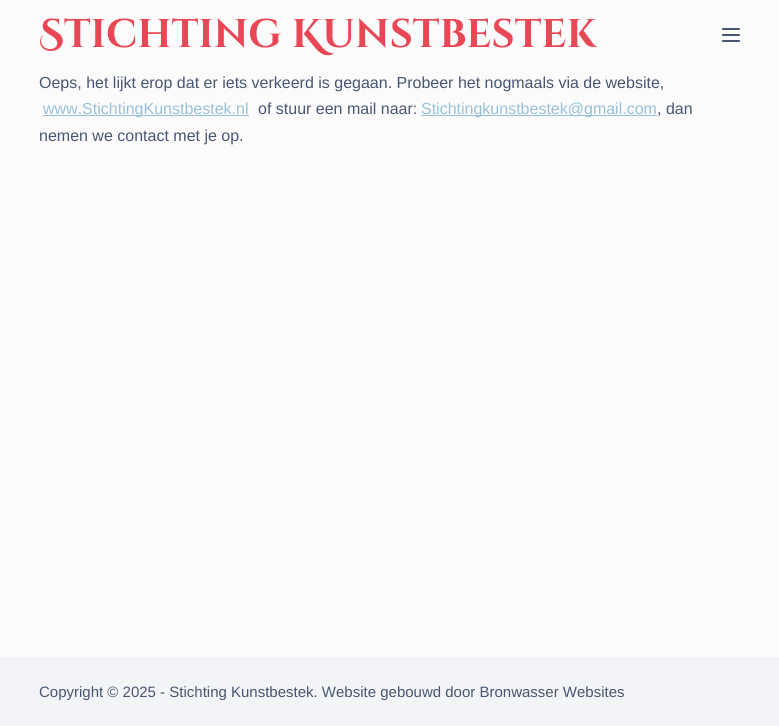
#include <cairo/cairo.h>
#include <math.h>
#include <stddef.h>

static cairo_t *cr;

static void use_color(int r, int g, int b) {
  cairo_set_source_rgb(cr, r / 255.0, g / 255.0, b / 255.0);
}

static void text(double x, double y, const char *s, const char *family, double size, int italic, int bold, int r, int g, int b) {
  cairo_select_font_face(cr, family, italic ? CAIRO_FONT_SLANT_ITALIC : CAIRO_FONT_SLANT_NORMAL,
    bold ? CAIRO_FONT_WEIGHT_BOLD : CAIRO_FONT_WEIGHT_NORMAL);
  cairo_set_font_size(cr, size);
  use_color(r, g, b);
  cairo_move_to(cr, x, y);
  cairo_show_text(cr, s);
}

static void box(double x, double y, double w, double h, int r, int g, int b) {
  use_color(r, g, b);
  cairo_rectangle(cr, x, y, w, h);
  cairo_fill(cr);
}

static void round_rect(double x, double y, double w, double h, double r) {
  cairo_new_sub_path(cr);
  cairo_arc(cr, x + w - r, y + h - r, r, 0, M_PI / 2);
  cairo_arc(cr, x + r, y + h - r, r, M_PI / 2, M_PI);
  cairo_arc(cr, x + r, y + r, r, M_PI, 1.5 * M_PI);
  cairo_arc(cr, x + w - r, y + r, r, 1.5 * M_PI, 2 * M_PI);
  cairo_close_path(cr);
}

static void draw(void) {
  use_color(251, 251, 252);
  cairo_paint(cr);
  use_color(71, 86, 113);
  round_rect(722, 28, 18, 2, 1);
  cairo_fill(cr);
  round_rect(722, 34, 18, 2, 1);
  cairo_fill(cr);
  round_rect(722, 40, 18, 2, 1);
  cairo_fill(cr);
  box(43, 115, 206, 1, 152, 193, 217);
  box(421, 115, 236, 1, 152, 193, 217);
  box(0, 657, 779, 69, 243, 244, 247);
  text(39, 47, "Stichting Kunstbestek", "Cinzel Decorative", 40, 0, 1, 232, 72, 85);
  text(39, 88, "Oeps, het lijkt erop dat er iets verkeerd is gegaan. Probeer het nogmaals via de website,", "Liberation Sans", 16, 0, 0, 71, 86, 113);
  text(43, 114, "www.StichtingKunstbestek.nl", "Liberation Sans", 16, 0, 0, 152, 193, 217);
  text(258, 114, "of stuur een mail naar:", "Liberation Sans", 16, 0, 0, 71, 86, 113);
  text(421, 114, "Stichtingkunstbestek@gmail.com", "Liberation Sans", 16, 0, 0, 152, 193, 217);
  text(657, 114, ", dan", "Liberation Sans", 16, 0, 0, 71, 86, 113);
  text(39, 141, "nemen we contact met je op.", "Liberation Sans", 16, 0, 0, 71, 86, 113);
  text(39, 697, "Copyright © 2025 - Stichting Kunstbestek. Website gebouwd door Bronwasser Websites", "Liberation Sans", 15, 0, 0, 71, 86, 113);
}

int main(void) {
  cairo_surface_t *surface = cairo_image_surface_create(CAIRO_FORMAT_RGB24, 779, 726);
  cr = cairo_create(surface);
  cairo_font_options_t *options = cairo_font_options_create();
  cairo_font_options_set_hint_metrics(options, CAIRO_HINT_METRICS_OFF);
  cairo_font_options_set_hint_style(options, CAIRO_HINT_STYLE_NONE);
  cairo_set_font_options(cr, options);
  cairo_set_miter_limit(cr, 4);
  draw();
  cairo_surface_write_to_png(surface, "out.png");
  cairo_font_options_destroy(options);
  cairo_destroy(cr);
  cairo_surface_destroy(surface);
  return 0;
}
